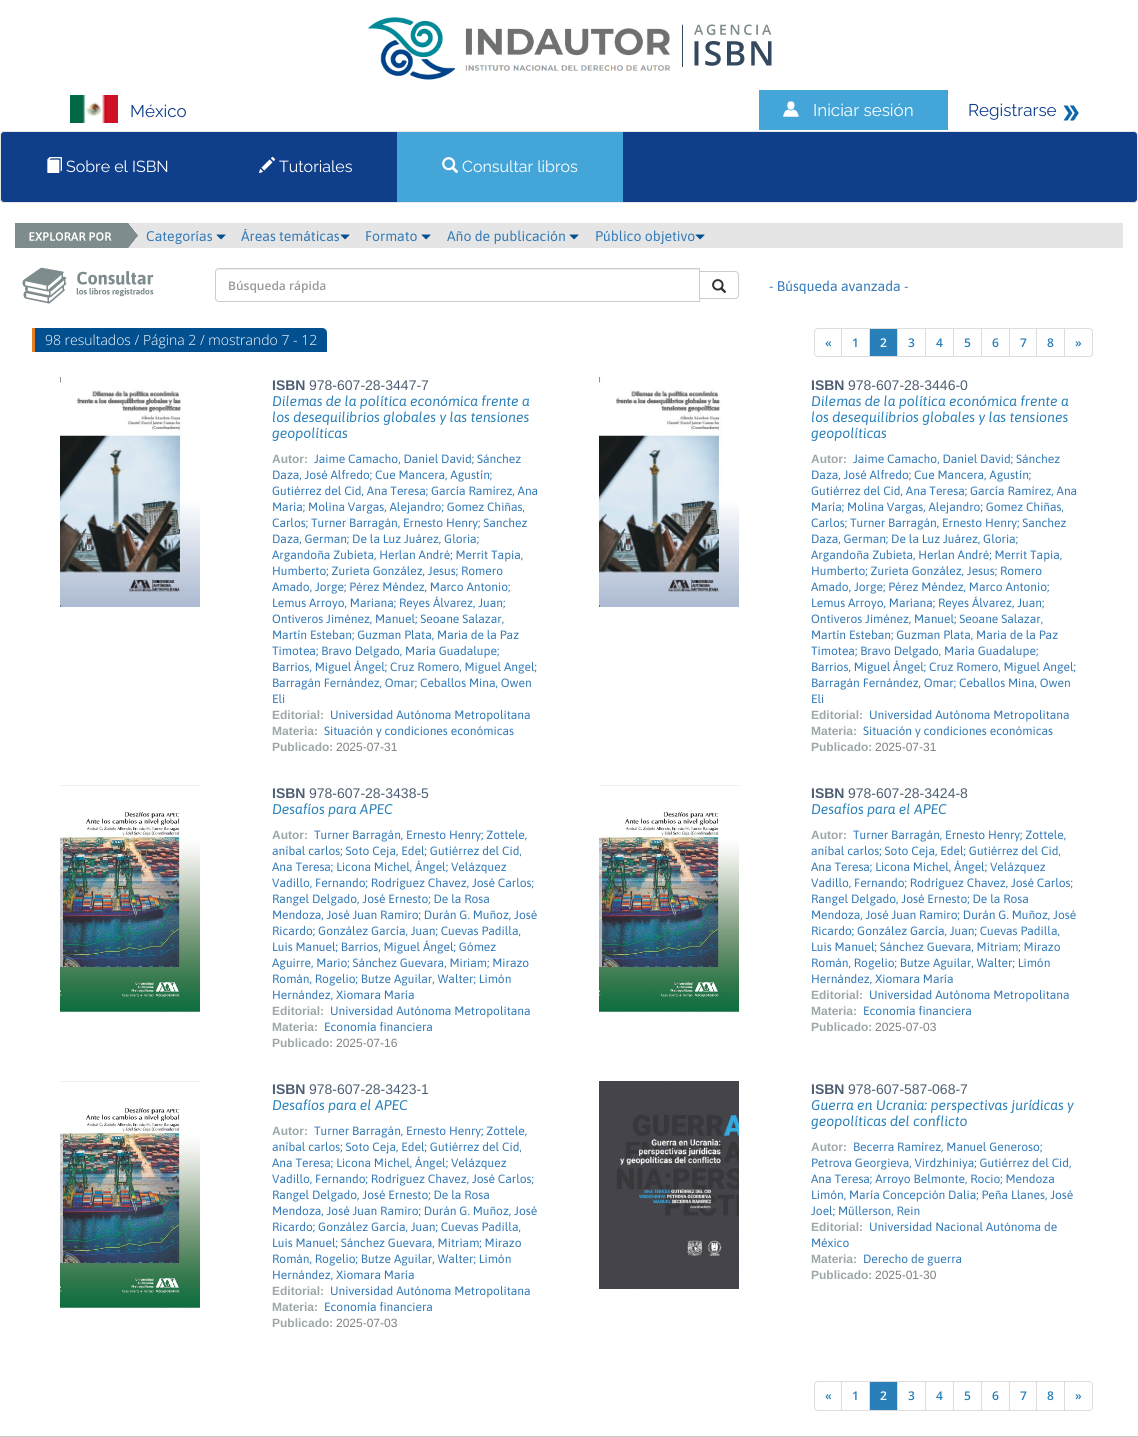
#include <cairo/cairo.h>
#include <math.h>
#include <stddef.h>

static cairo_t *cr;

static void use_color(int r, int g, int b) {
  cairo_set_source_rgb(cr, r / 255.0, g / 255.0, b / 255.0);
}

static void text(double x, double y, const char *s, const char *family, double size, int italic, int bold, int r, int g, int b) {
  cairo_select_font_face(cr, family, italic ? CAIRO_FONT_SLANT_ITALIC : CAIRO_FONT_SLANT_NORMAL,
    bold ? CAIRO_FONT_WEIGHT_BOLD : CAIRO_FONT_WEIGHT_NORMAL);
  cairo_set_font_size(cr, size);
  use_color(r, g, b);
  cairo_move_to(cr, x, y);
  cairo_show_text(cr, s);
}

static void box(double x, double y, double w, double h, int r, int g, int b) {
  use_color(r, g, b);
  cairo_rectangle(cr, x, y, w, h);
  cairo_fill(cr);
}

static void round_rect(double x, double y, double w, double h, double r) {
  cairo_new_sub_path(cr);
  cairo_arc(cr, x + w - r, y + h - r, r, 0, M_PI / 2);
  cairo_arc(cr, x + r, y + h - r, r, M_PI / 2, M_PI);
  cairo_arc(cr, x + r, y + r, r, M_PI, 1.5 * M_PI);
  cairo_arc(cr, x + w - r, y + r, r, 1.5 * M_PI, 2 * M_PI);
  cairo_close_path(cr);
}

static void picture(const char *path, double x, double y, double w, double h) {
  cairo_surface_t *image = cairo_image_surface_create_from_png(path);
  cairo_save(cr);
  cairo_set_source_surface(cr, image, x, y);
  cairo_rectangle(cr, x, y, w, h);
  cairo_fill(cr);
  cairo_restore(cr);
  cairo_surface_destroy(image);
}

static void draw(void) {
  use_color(255, 255, 255);
  cairo_paint(cr);
  picture("img_01.png", 368, 17, 302, 63);
  picture("img_02.png", 682, 24, 90, 43);
  picture("img_03.png", 70, 95, 48, 28);
  box(759, 90, 189, 40, 68, 165, 217);
  picture("img_04.png", 783, 101, 16, 16);
  picture("img_05.png", 1063, 105, 16, 16);
  use_color(15, 62, 139);
  round_rect(0.5, 131.5, 1137, 71, 3.5);
  cairo_fill_preserve(cr);
  use_color(231, 231, 231);
  cairo_set_line_width(cr, 1);
  cairo_stroke(cr);
  picture("img_06.png", 47, 157, 15, 16);
  picture("img_07.png", 258, 156, 18, 18);
  box(397, 132, 226, 70, 68, 165, 217);
  picture("img_08.png", 442, 157, 17, 17);
  box(129, 223, 994, 25, 229, 229, 229);
  picture("img_09.png", 15, 223, 123, 25);
  picture("img_10.png", 216, 234, 10, 6);
  picture("img_10.png", 340, 234, 10, 6);
  picture("img_10.png", 421, 234, 10, 6);
  picture("img_10.png", 569, 234, 10, 6);
  picture("img_10.png", 695, 234, 10, 6);
  picture("img_11.png", 22, 267, 132, 37);
  use_color(236, 236, 236);
  cairo_new_path(cr);
  cairo_move_to(cr, 219, 270);
  cairo_line_to(cr, 699, 270);
  cairo_line_to(cr, 699, 269);
  cairo_line_to(cr, 219, 269);
  cairo_curve_to(cr, 217, 269, 216, 271, 216, 273);
  cairo_curve_to(cr, 216, 271, 217, 270, 219, 270);
  cairo_close_path(cr);
  cairo_fill(cr);
  cairo_new_path(cr);
  cairo_move_to(cr, 219, 268.5);
  cairo_line_to(cr, 699.5, 268.5);
  cairo_line_to(cr, 699.5, 301.5);
  cairo_line_to(cr, 219, 301.5);
  cairo_curve_to(cr, 217, 301.5, 215.5, 300, 215.5, 298);
  cairo_line_to(cr, 215.5, 272);
  cairo_curve_to(cr, 215.5, 270, 217, 268.5, 219, 268.5);
  cairo_close_path(cr);
  use_color(204, 204, 204);
  cairo_stroke(cr);
  use_color(255, 255, 255);
  cairo_new_path(cr);
  cairo_move_to(cr, 699.5, 271.5);
  cairo_line_to(cr, 735, 271.5);
  cairo_curve_to(cr, 737, 271.5, 738.5, 273, 738.5, 275);
  cairo_line_to(cr, 738.5, 295);
  cairo_curve_to(cr, 738.5, 297, 737, 298.5, 735, 298.5);
  cairo_line_to(cr, 699.5, 298.5);
  cairo_close_path(cr);
  cairo_fill_preserve(cr);
  use_color(204, 204, 204);
  cairo_stroke(cr);
  picture("img_12.png", 712, 279, 15, 14);
  use_color(2, 80, 143);
  cairo_new_path(cr);
  cairo_move_to(cr, 32, 328);
  cairo_line_to(cr, 322, 328);
  cairo_curve_to(cr, 325, 328, 327, 330, 327, 333);
  cairo_line_to(cr, 327, 352);
  cairo_line_to(cr, 32, 352);
  cairo_close_path(cr);
  cairo_fill(cr);
  box(32, 328, 3, 24, 230, 126, 34);
  cairo_new_path(cr);
  cairo_move_to(cr, 818, 328.5);
  cairo_line_to(cr, 841.5, 328.5);
  cairo_line_to(cr, 841.5, 356.5);
  cairo_line_to(cr, 818, 356.5);
  cairo_curve_to(cr, 816, 356.5, 814.5, 355, 814.5, 353);
  cairo_line_to(cr, 814.5, 332);
  cairo_curve_to(cr, 814.5, 330, 816, 328.5, 818, 328.5);
  cairo_close_path(cr);
  use_color(221, 221, 221);
  cairo_stroke(cr);
  cairo_rectangle(cr, 841.5, 328.5, 28, 28);
  cairo_stroke(cr);
  use_color(41, 128, 185);
  cairo_rectangle(cr, 869.5, 328.5, 28, 28);
  cairo_fill_preserve(cr);
  use_color(221, 221, 221);
  cairo_stroke(cr);
  cairo_rectangle(cr, 897.5, 328.5, 28, 28);
  cairo_stroke(cr);
  cairo_rectangle(cr, 925.5, 328.5, 28, 28);
  cairo_stroke(cr);
  cairo_rectangle(cr, 953.5, 328.5, 28, 28);
  cairo_stroke(cr);
  cairo_rectangle(cr, 981.5, 328.5, 28, 28);
  cairo_stroke(cr);
  cairo_rectangle(cr, 1009.5, 328.5, 27, 28);
  cairo_stroke(cr);
  cairo_rectangle(cr, 1036.5, 328.5, 28, 28);
  cairo_stroke(cr);
  cairo_new_path(cr);
  cairo_move_to(cr, 1064.5, 328.5);
  cairo_line_to(cr, 1089, 328.5);
  cairo_curve_to(cr, 1091, 328.5, 1092.5, 330, 1092.5, 332);
  cairo_line_to(cr, 1092.5, 353);
  cairo_curve_to(cr, 1092.5, 355, 1091, 356.5, 1089, 356.5);
  cairo_line_to(cr, 1064.5, 356.5);
  cairo_close_path(cr);
  cairo_stroke(cr);
  picture("img_13.png", 60, 377, 140, 230);
  picture("img_14.png", 599, 377, 140, 230);
  picture("img_15.png", 60, 785, 140, 227);
  picture("img_15.png", 599, 785, 140, 227);
  picture("img_15.png", 60, 1081, 140, 227);
  picture("img_16.png", 599, 1081, 140, 208);
  cairo_new_path(cr);
  cairo_move_to(cr, 818, 1381.5);
  cairo_line_to(cr, 841.5, 1381.5);
  cairo_line_to(cr, 841.5, 1410.5);
  cairo_line_to(cr, 818, 1410.5);
  cairo_curve_to(cr, 816, 1410.5, 814.5, 1409, 814.5, 1407);
  cairo_line_to(cr, 814.5, 1385);
  cairo_curve_to(cr, 814.5, 1383, 816, 1381.5, 818, 1381.5);
  cairo_close_path(cr);
  cairo_stroke(cr);
  cairo_rectangle(cr, 841.5, 1381.5, 28, 29);
  cairo_stroke(cr);
  use_color(41, 128, 185);
  cairo_rectangle(cr, 869.5, 1381.5, 28, 29);
  cairo_fill_preserve(cr);
  use_color(221, 221, 221);
  cairo_stroke(cr);
  cairo_rectangle(cr, 897.5, 1381.5, 28, 29);
  cairo_stroke(cr);
  cairo_rectangle(cr, 925.5, 1381.5, 28, 29);
  cairo_stroke(cr);
  cairo_rectangle(cr, 953.5, 1381.5, 28, 29);
  cairo_stroke(cr);
  cairo_rectangle(cr, 981.5, 1381.5, 28, 29);
  cairo_stroke(cr);
  cairo_rectangle(cr, 1009.5, 1381.5, 27, 29);
  cairo_stroke(cr);
  cairo_rectangle(cr, 1036.5, 1381.5, 28, 29);
  cairo_stroke(cr);
  cairo_new_path(cr);
  cairo_move_to(cr, 1064.5, 1381.5);
  cairo_line_to(cr, 1089, 1381.5);
  cairo_curve_to(cr, 1091, 1381.5, 1092.5, 1383, 1092.5, 1385);
  cairo_line_to(cr, 1092.5, 1407);
  cairo_curve_to(cr, 1092.5, 1409, 1091, 1410.5, 1089, 1410.5);
  cairo_line_to(cr, 1064.5, 1410.5);
  cairo_close_path(cr);
  cairo_stroke(cr);
  box(0, 1436, 1138, 1, 198, 199, 200);
  text(130, 117, "México", "Raleway Thin", 17, 0, 0, 15, 62, 139);
  text(813, 116, "Iniciar sesión", "Raleway Thin", 17, 0, 0, 255, 255, 255);
  text(968, 116, "Registrarse", "Raleway Thin", 17, 0, 0, 15, 62, 139);
  text(66, 172, "Sobre el ISBN", "Raleway Thin", 16, 0, 0, 255, 255, 255);
  text(279, 172, "Tutoriales", "Raleway Thin", 16, 0, 0, 255, 255, 255);
  text(462, 172, "Consultar libros", "Raleway Thin", 16, 0, 0, 255, 255, 255);
  text(146, 241, "Categorías", "Asap", 14, 0, 0, 51, 122, 183);
  text(241, 241, "Áreas temáticas", "Asap", 14, 0, 0, 51, 122, 183);
  text(365, 241, "Formato", "Asap", 14, 0, 0, 51, 122, 183);
  text(447, 241, "Año de publicación", "Asap", 14, 0, 0, 51, 122, 183);
  text(595, 241, "Público objetivo", "Asap", 14, 0, 0, 51, 122, 183);
  text(228, 290, "Búsqueda rápida", "Open Sans SemiBold", 12, 0, 0, 153, 153, 153);
  text(769, 291, "- Búsqueda avanzada -", "Asap", 14, 0, 0, 51, 122, 183);
  text(45, 345, "98 resultados / Página 2 / mostrando 7 - 12", "Open Sans Light", 14, 0, 0, 255, 255, 255);
  text(825, 347, "«", "Open Sans SemiBold", 12, 0, 0, 41, 128, 185);
  text(852, 347, "1", "Open Sans SemiBold", 12, 0, 0, 41, 128, 185);
  text(880, 347, "2", "Open Sans SemiBold", 12, 0, 0, 255, 255, 255);
  text(908, 347, "3", "Open Sans SemiBold", 12, 0, 0, 41, 128, 185);
  text(936, 347, "4", "Open Sans SemiBold", 12, 0, 0, 41, 128, 185);
  text(964, 347, "5", "Open Sans SemiBold", 12, 0, 0, 41, 128, 185);
  text(992, 347, "6", "Open Sans SemiBold", 12, 0, 0, 41, 128, 185);
  text(1020, 347, "7", "Open Sans SemiBold", 12, 0, 0, 41, 128, 185);
  text(1047, 347, "8", "Open Sans SemiBold", 12, 0, 0, 41, 128, 185);
  text(1075, 347, "»", "Open Sans SemiBold", 12, 0, 0, 41, 128, 185);
  text(272, 390, "ISBN", "Liberation Sans", 14, 0, 1, 77, 95, 114);
  text(309, 390, "978-607-28-3447-7", "Liberation Sans", 14, 0, 0, 77, 95, 114);
  text(272, 406, "Dilemas de la política económica frente a", "Asap", 14, 1, 0, 41, 128, 185);
  text(272, 422, "los desequilibrios globales y las tensiones", "Asap", 14, 1, 0, 41, 128, 185);
  text(272, 438, "geopolíticas", "Asap", 14, 1, 0, 41, 128, 185);
  text(272, 463, "Autor:", "Liberation Sans", 12, 0, 1, 157, 167, 168);
  text(314, 463, "Jaime Camacho, Daniel David; Sánchez", "Asap", 12, 0, 0, 51, 122, 183);
  text(272, 479, "Daza, José Alfredo; Cue Mancera, Agustín;", "Asap", 12, 0, 0, 51, 122, 183);
  text(272, 495, "Gutiérrez del Cid, Ana Teresa; García Ramírez, Ana", "Asap", 12, 0, 0, 51, 122, 183);
  text(272, 511, "María; Molina Vargas, Alejandro; Gomez Chiñas,", "Asap", 12, 0, 0, 51, 122, 183);
  text(272, 527, "Carlos; Turner Barragán, Ernesto Henry; Sanchez", "Asap", 12, 0, 0, 51, 122, 183);
  text(272, 543, "Daza, German; De la Luz Juárez, Gloria;", "Asap", 12, 0, 0, 51, 122, 183);
  text(272, 559, "Argandoña Zubieta, Herlan André; Merrit Tapia,", "Asap", 12, 0, 0, 51, 122, 183);
  text(272, 575, "Humberto; Zurieta González, Jesus; Romero", "Asap", 12, 0, 0, 51, 122, 183);
  text(272, 591, "Amado, Jorge; Pérez Méndez, Marco Antonio;", "Asap", 12, 0, 0, 51, 122, 183);
  text(272, 607, "Lemus Arroyo, Mariana; Reyes Álvarez, Juan;", "Asap", 12, 0, 0, 51, 122, 183);
  text(272, 623, "Ontiveros Jiménez, Manuel; Seoane Salazar,", "Asap", 12, 0, 0, 51, 122, 183);
  text(272, 639, "Martín Esteban; Guzman Plata, Maria de la Paz", "Asap", 12, 0, 0, 51, 122, 183);
  text(272, 655, "Timotea; Bravo Delgado, María Guadalupe;", "Asap", 12, 0, 0, 51, 122, 183);
  text(272, 671, "Barrios, Miguel Ángel; Cruz Romero, Miguel Angel;", "Asap", 12, 0, 0, 51, 122, 183);
  text(272, 687, "Barragán Fernández, Omar; Ceballos Mina, Owen", "Asap", 12, 0, 0, 51, 122, 183);
  text(272, 703, "Eli", "Asap", 12, 0, 0, 51, 122, 183);
  text(272, 719, "Editorial:", "Liberation Sans", 12, 0, 1, 157, 167, 168);
  text(330, 719, "Universidad Autónoma Metropolitana", "Asap", 12, 0, 0, 51, 122, 183);
  text(272, 735, "Materia:", "Liberation Sans", 12, 0, 1, 157, 167, 168);
  text(324, 735, "Situación y condiciones económicas", "Asap", 12, 0, 0, 51, 122, 183);
  text(272, 751, "Publicado:", "Liberation Sans", 12, 0, 1, 157, 167, 168);
  text(336, 751, "2025-07-31", "Liberation Sans", 12, 0, 0, 124, 128, 125);
  text(811, 390, "ISBN", "Liberation Sans", 14, 0, 1, 77, 95, 114);
  text(848, 390, "978-607-28-3446-0", "Liberation Sans", 14, 0, 0, 77, 95, 114);
  text(811, 406, "Dilemas de la política económica frente a", "Asap", 14, 1, 0, 41, 128, 185);
  text(811, 422, "los desequilibrios globales y las tensiones", "Asap", 14, 1, 0, 41, 128, 185);
  text(811, 438, "geopolíticas", "Asap", 14, 1, 0, 41, 128, 185);
  text(811, 463, "Autor:", "Liberation Sans", 12, 0, 1, 157, 167, 168);
  text(853, 463, "Jaime Camacho, Daniel David; Sánchez", "Asap", 12, 0, 0, 51, 122, 183);
  text(811, 479, "Daza, José Alfredo; Cue Mancera, Agustín;", "Asap", 12, 0, 0, 51, 122, 183);
  text(811, 495, "Gutiérrez del Cid, Ana Teresa; García Ramírez, Ana", "Asap", 12, 0, 0, 51, 122, 183);
  text(811, 511, "María; Molina Vargas, Alejandro; Gomez Chiñas,", "Asap", 12, 0, 0, 51, 122, 183);
  text(811, 527, "Carlos; Turner Barragán, Ernesto Henry; Sanchez", "Asap", 12, 0, 0, 51, 122, 183);
  text(811, 543, "Daza, German; De la Luz Juárez, Gloria;", "Asap", 12, 0, 0, 51, 122, 183);
  text(811, 559, "Argandoña Zubieta, Herlan André; Merrit Tapia,", "Asap", 12, 0, 0, 51, 122, 183);
  text(811, 575, "Humberto; Zurieta González, Jesus; Romero", "Asap", 12, 0, 0, 51, 122, 183);
  text(811, 591, "Amado, Jorge; Pérez Méndez, Marco Antonio;", "Asap", 12, 0, 0, 51, 122, 183);
  text(811, 607, "Lemus Arroyo, Mariana; Reyes Álvarez, Juan;", "Asap", 12, 0, 0, 51, 122, 183);
  text(811, 623, "Ontiveros Jiménez, Manuel; Seoane Salazar,", "Asap", 12, 0, 0, 51, 122, 183);
  text(811, 639, "Martín Esteban; Guzman Plata, Maria de la Paz", "Asap", 12, 0, 0, 51, 122, 183);
  text(811, 655, "Timotea; Bravo Delgado, María Guadalupe;", "Asap", 12, 0, 0, 51, 122, 183);
  text(811, 671, "Barrios, Miguel Ángel; Cruz Romero, Miguel Angel;", "Asap", 12, 0, 0, 51, 122, 183);
  text(811, 687, "Barragán Fernández, Omar; Ceballos Mina, Owen", "Asap", 12, 0, 0, 51, 122, 183);
  text(811, 703, "Eli", "Asap", 12, 0, 0, 51, 122, 183);
  text(811, 719, "Editorial:", "Liberation Sans", 12, 0, 1, 157, 167, 168);
  text(869, 719, "Universidad Autónoma Metropolitana", "Asap", 12, 0, 0, 51, 122, 183);
  text(811, 735, "Materia:", "Liberation Sans", 12, 0, 1, 157, 167, 168);
  text(863, 735, "Situación y condiciones económicas", "Asap", 12, 0, 0, 51, 122, 183);
  text(811, 751, "Publicado:", "Liberation Sans", 12, 0, 1, 157, 167, 168);
  text(875, 751, "2025-07-31", "Liberation Sans", 12, 0, 0, 124, 128, 125);
  text(272, 798, "ISBN", "Liberation Sans", 14, 0, 1, 77, 95, 114);
  text(309, 798, "978-607-28-3438-5", "Liberation Sans", 14, 0, 0, 77, 95, 114);
  text(272, 814, "Desafíos para APEC", "Asap", 14, 1, 0, 41, 128, 185);
  text(272, 839, "Autor:", "Liberation Sans", 12, 0, 1, 157, 167, 168);
  text(314, 839, "Turner Barragán, Ernesto Henry; Zottele,", "Asap", 12, 0, 0, 51, 122, 183);
  text(272, 855, "aníbal carlos; Soto Ceja, Edel; Gutiérrez del Cid,", "Asap", 12, 0, 0, 51, 122, 183);
  text(272, 871, "Ana Teresa; Licona Michel, Ángel; Velázquez", "Asap", 12, 0, 0, 51, 122, 183);
  text(272, 887, "Vadillo, Fernando; Rodríguez Chavez, José Carlos;", "Asap", 12, 0, 0, 51, 122, 183);
  text(272, 903, "Rangel Delgado, José Ernesto; De la Rosa", "Asap", 12, 0, 0, 51, 122, 183);
  text(272, 919, "Mendoza, José Juan Ramiro; Durán G. Muñoz, José", "Asap", 12, 0, 0, 51, 122, 183);
  text(272, 935, "Ricardo; González García, Juan; Cuevas Padilla,", "Asap", 12, 0, 0, 51, 122, 183);
  text(272, 951, "Luis Manuel; Barrios, Miguel Ángel; Gómez", "Asap", 12, 0, 0, 51, 122, 183);
  text(272, 967, "Aguirre, Mario; Sánchez Guevara, Miriam; Mirazo", "Asap", 12, 0, 0, 51, 122, 183);
  text(272, 983, "Román, Rogelio; Butze Aguilar, Walter; Limón", "Asap", 12, 0, 0, 51, 122, 183);
  text(272, 999, "Hernández, Xiomara María", "Asap", 12, 0, 0, 51, 122, 183);
  text(272, 1015, "Editorial:", "Liberation Sans", 12, 0, 1, 157, 167, 168);
  text(330, 1015, "Universidad Autónoma Metropolitana", "Asap", 12, 0, 0, 51, 122, 183);
  text(272, 1031, "Materia:", "Liberation Sans", 12, 0, 1, 157, 167, 168);
  text(324, 1031, "Economía financiera", "Asap", 12, 0, 0, 51, 122, 183);
  text(272, 1047, "Publicado:", "Liberation Sans", 12, 0, 1, 157, 167, 168);
  text(336, 1047, "2025-07-16", "Liberation Sans", 12, 0, 0, 124, 128, 125);
  text(811, 798, "ISBN", "Liberation Sans", 14, 0, 1, 77, 95, 114);
  text(848, 798, "978-607-28-3424-8", "Liberation Sans", 14, 0, 0, 77, 95, 114);
  text(811, 814, "Desafíos para el APEC", "Asap", 14, 1, 0, 41, 128, 185);
  text(811, 839, "Autor:", "Liberation Sans", 12, 0, 1, 157, 167, 168);
  text(853, 839, "Turner Barragán, Ernesto Henry; Zottele,", "Asap", 12, 0, 0, 51, 122, 183);
  text(811, 855, "aníbal carlos; Soto Ceja, Edel; Gutiérrez del Cid,", "Asap", 12, 0, 0, 51, 122, 183);
  text(811, 871, "Ana Teresa; Licona Michel, Ángel; Velázquez", "Asap", 12, 0, 0, 51, 122, 183);
  text(811, 887, "Vadillo, Fernando; Rodríguez Chavez, José Carlos;", "Asap", 12, 0, 0, 51, 122, 183);
  text(811, 903, "Rangel Delgado, José Ernesto; De la Rosa", "Asap", 12, 0, 0, 51, 122, 183);
  text(811, 919, "Mendoza, José Juan Ramiro; Durán G. Muñoz, José", "Asap", 12, 0, 0, 51, 122, 183);
  text(811, 935, "Ricardo; González García, Juan; Cuevas Padilla,", "Asap", 12, 0, 0, 51, 122, 183);
  text(811, 951, "Luis Manuel; Sánchez Guevara, Mitriam; Mirazo", "Asap", 12, 0, 0, 51, 122, 183);
  text(811, 967, "Román, Rogelio; Butze Aguilar, Walter; Limón", "Asap", 12, 0, 0, 51, 122, 183);
  text(811, 983, "Hernández, Xiomara María", "Asap", 12, 0, 0, 51, 122, 183);
  text(811, 999, "Editorial:", "Liberation Sans", 12, 0, 1, 157, 167, 168);
  text(869, 999, "Universidad Autónoma Metropolitana", "Asap", 12, 0, 0, 51, 122, 183);
  text(811, 1015, "Materia:", "Liberation Sans", 12, 0, 1, 157, 167, 168);
  text(863, 1015, "Economía financiera", "Asap", 12, 0, 0, 51, 122, 183);
  text(811, 1031, "Publicado:", "Liberation Sans", 12, 0, 1, 157, 167, 168);
  text(875, 1031, "2025-07-03", "Liberation Sans", 12, 0, 0, 124, 128, 125);
  text(272, 1094, "ISBN", "Liberation Sans", 14, 0, 1, 77, 95, 114);
  text(309, 1094, "978-607-28-3423-1", "Liberation Sans", 14, 0, 0, 77, 95, 114);
  text(272, 1110, "Desafíos para el APEC", "Asap", 14, 1, 0, 41, 128, 185);
  text(272, 1135, "Autor:", "Liberation Sans", 12, 0, 1, 157, 167, 168);
  text(314, 1135, "Turner Barragán, Ernesto Henry; Zottele,", "Asap", 12, 0, 0, 51, 122, 183);
  text(272, 1151, "aníbal carlos; Soto Ceja, Edel; Gutiérrez del Cid,", "Asap", 12, 0, 0, 51, 122, 183);
  text(272, 1167, "Ana Teresa; Licona Michel, Ángel; Velázquez", "Asap", 12, 0, 0, 51, 122, 183);
  text(272, 1183, "Vadillo, Fernando; Rodríguez Chavez, José Carlos;", "Asap", 12, 0, 0, 51, 122, 183);
  text(272, 1199, "Rangel Delgado, José Ernesto; De la Rosa", "Asap", 12, 0, 0, 51, 122, 183);
  text(272, 1215, "Mendoza, José Juan Ramiro; Durán G. Muñoz, José", "Asap", 12, 0, 0, 51, 122, 183);
  text(272, 1231, "Ricardo; González García, Juan; Cuevas Padilla,", "Asap", 12, 0, 0, 51, 122, 183);
  text(272, 1247, "Luis Manuel; Sánchez Guevara, Mitriam; Mirazo", "Asap", 12, 0, 0, 51, 122, 183);
  text(272, 1263, "Román, Rogelio; Butze Aguilar, Walter; Limón", "Asap", 12, 0, 0, 51, 122, 183);
  text(272, 1279, "Hernández, Xiomara María", "Asap", 12, 0, 0, 51, 122, 183);
  text(272, 1295, "Editorial:", "Liberation Sans", 12, 0, 1, 157, 167, 168);
  text(330, 1295, "Universidad Autónoma Metropolitana", "Asap", 12, 0, 0, 51, 122, 183);
  text(272, 1311, "Materia:", "Liberation Sans", 12, 0, 1, 157, 167, 168);
  text(324, 1311, "Economía financiera", "Asap", 12, 0, 0, 51, 122, 183);
  text(272, 1327, "Publicado:", "Liberation Sans", 12, 0, 1, 157, 167, 168);
  text(336, 1327, "2025-07-03", "Liberation Sans", 12, 0, 0, 124, 128, 125);
  text(811, 1094, "ISBN", "Liberation Sans", 14, 0, 1, 77, 95, 114);
  text(848, 1094, "978-607-587-068-7", "Liberation Sans", 14, 0, 0, 77, 95, 114);
  text(811, 1110, "Guerra en Ucrania: perspectivas jurídicas y", "Asap", 14, 1, 0, 41, 128, 185);
  text(811, 1126, "geopolíticas del conflicto", "Asap", 14, 1, 0, 41, 128, 185);
  text(811, 1151, "Autor:", "Liberation Sans", 12, 0, 1, 157, 167, 168);
  text(853, 1151, "Becerra Ramírez, Manuel Generoso;", "Asap", 12, 0, 0, 51, 122, 183);
  text(811, 1167, "Petrova Georgieva, Virdzhiniya; Gutiérrez del Cid,", "Asap", 12, 0, 0, 51, 122, 183);
  text(811, 1183, "Ana Teresa; Arroyo Belmonte, Rocio; Mendoza", "Asap", 12, 0, 0, 51, 122, 183);
  text(811, 1199, "Limón, María Concepción Dalia; Peña Llanes, José", "Asap", 12, 0, 0, 51, 122, 183);
  text(811, 1215, "Joel; Müllerson, Rein", "Asap", 12, 0, 0, 51, 122, 183);
  text(811, 1231, "Editorial:", "Liberation Sans", 12, 0, 1, 157, 167, 168);
  text(869, 1231, "Universidad Nacional Autónoma de", "Asap", 12, 0, 0, 51, 122, 183);
  text(811, 1247, "México", "Asap", 12, 0, 0, 51, 122, 183);
  text(811, 1263, "Materia:", "Liberation Sans", 12, 0, 1, 157, 167, 168);
  text(863, 1263, "Derecho de guerra", "Asap", 12, 0, 0, 51, 122, 183);
  text(811, 1279, "Publicado:", "Liberation Sans", 12, 0, 1, 157, 167, 168);
  text(875, 1279, "2025-01-30", "Liberation Sans", 12, 0, 0, 124, 128, 125);
  text(825, 1400, "«", "Open Sans SemiBold", 12, 0, 0, 41, 128, 185);
  text(852, 1400, "1", "Open Sans SemiBold", 12, 0, 0, 41, 128, 185);
  text(880, 1400, "2", "Open Sans SemiBold", 12, 0, 0, 255, 255, 255);
  text(908, 1400, "3", "Open Sans SemiBold", 12, 0, 0, 41, 128, 185);
  text(936, 1400, "4", "Open Sans SemiBold", 12, 0, 0, 41, 128, 185);
  text(964, 1400, "5", "Open Sans SemiBold", 12, 0, 0, 41, 128, 185);
  text(992, 1400, "6", "Open Sans SemiBold", 12, 0, 0, 41, 128, 185);
  text(1020, 1400, "7", "Open Sans SemiBold", 12, 0, 0, 41, 128, 185);
  text(1047, 1400, "8", "Open Sans SemiBold", 12, 0, 0, 41, 128, 185);
  text(1075, 1400, "»", "Open Sans SemiBold", 12, 0, 0, 41, 128, 185);
}

int main(void) {
  cairo_surface_t *surface = cairo_image_surface_create(CAIRO_FORMAT_RGB24, 1138, 1437);
  cr = cairo_create(surface);
  cairo_font_options_t *options = cairo_font_options_create();
  cairo_font_options_set_hint_metrics(options, CAIRO_HINT_METRICS_OFF);
  cairo_font_options_set_hint_style(options, CAIRO_HINT_STYLE_NONE);
  cairo_set_font_options(cr, options);
  cairo_set_miter_limit(cr, 4);
  draw();
  cairo_surface_write_to_png(surface, "out.png");
  cairo_font_options_destroy(options);
  cairo_destroy(cr);
  cairo_surface_destroy(surface);
  return 0;
}
